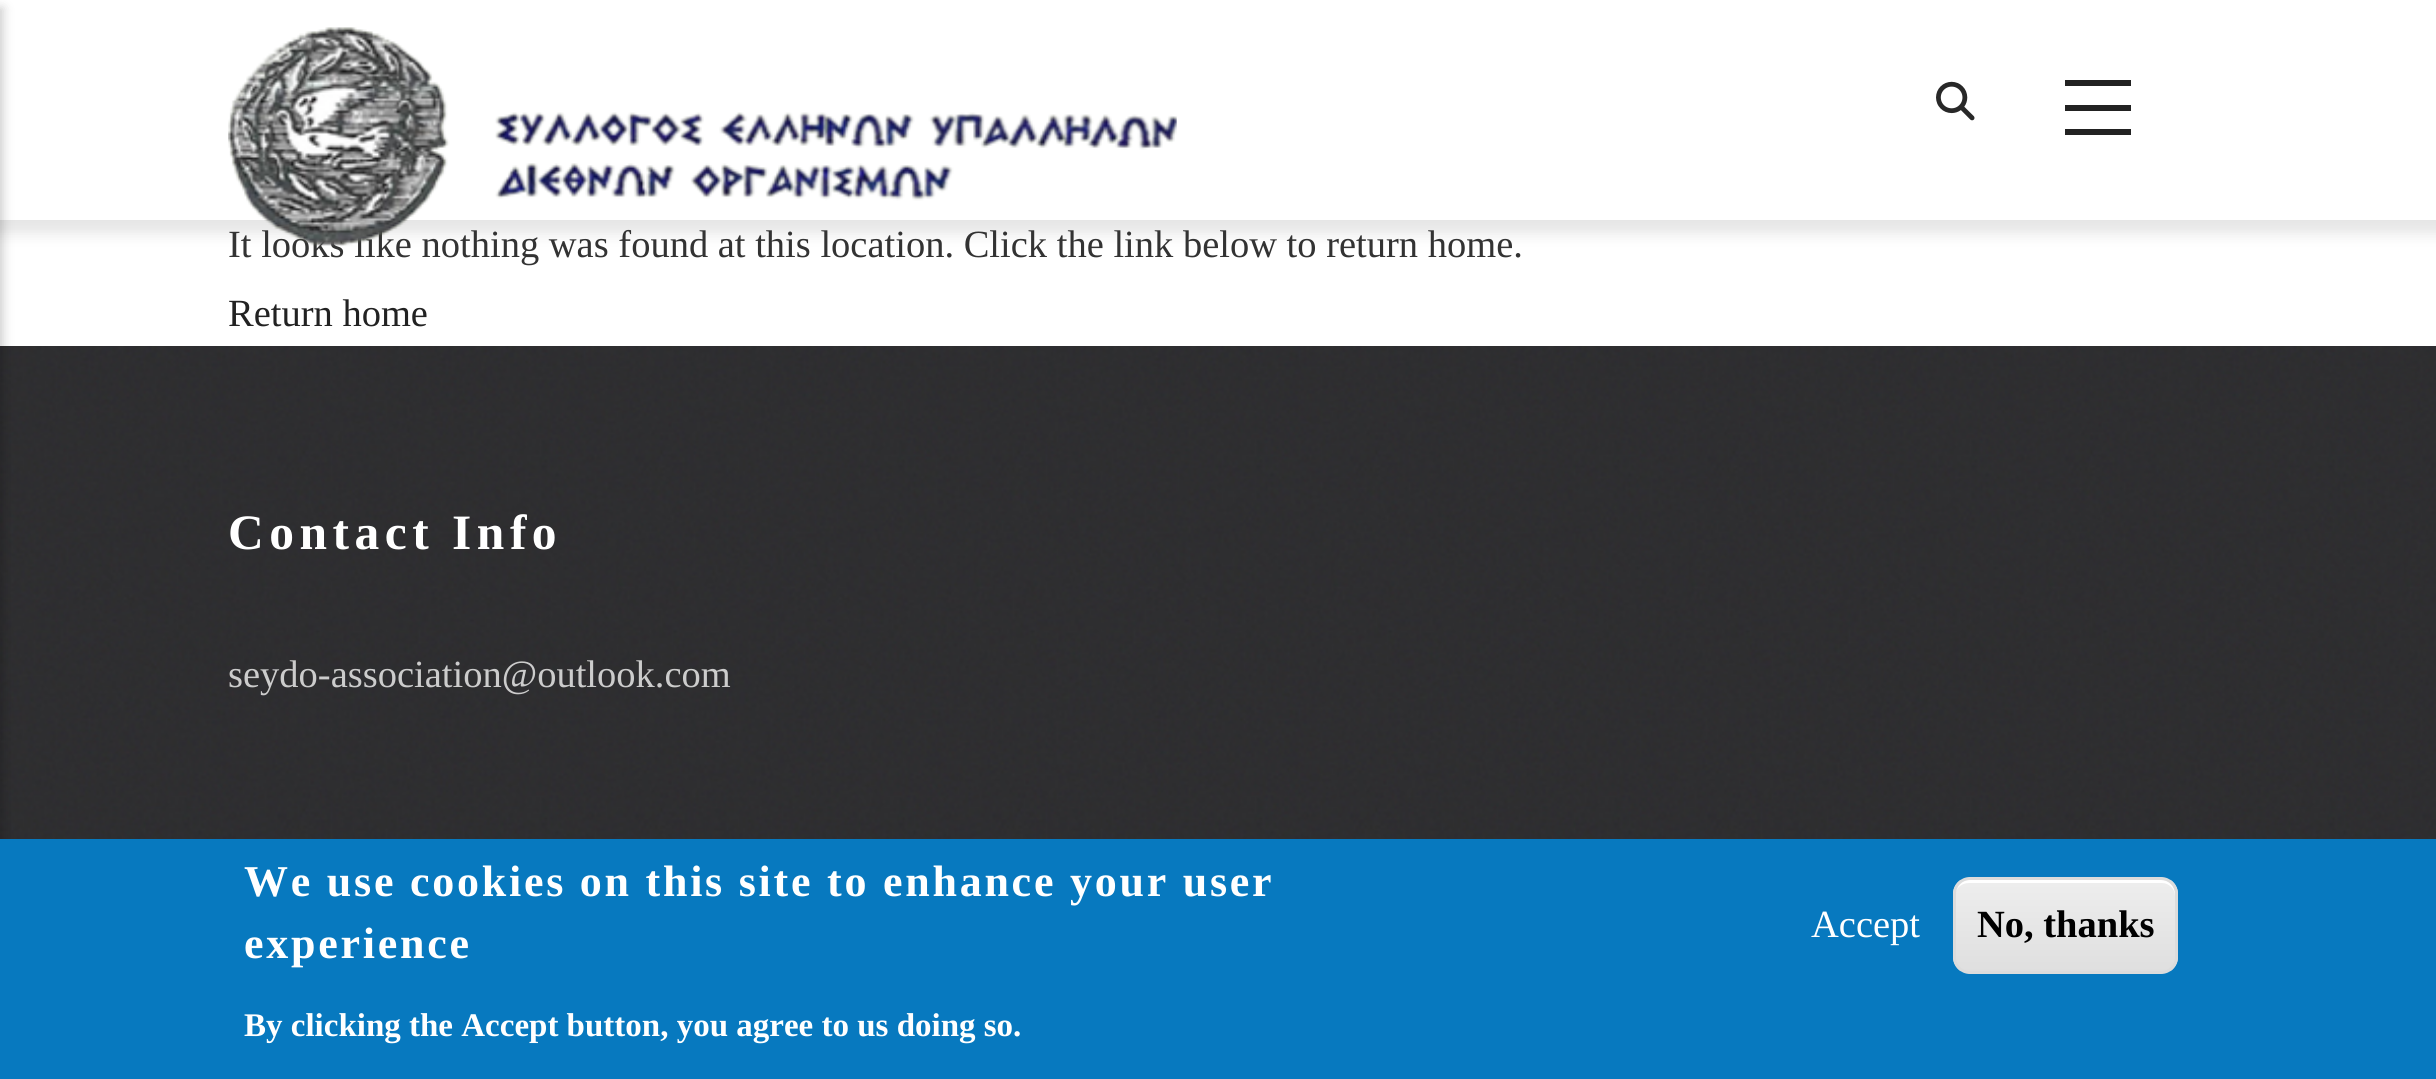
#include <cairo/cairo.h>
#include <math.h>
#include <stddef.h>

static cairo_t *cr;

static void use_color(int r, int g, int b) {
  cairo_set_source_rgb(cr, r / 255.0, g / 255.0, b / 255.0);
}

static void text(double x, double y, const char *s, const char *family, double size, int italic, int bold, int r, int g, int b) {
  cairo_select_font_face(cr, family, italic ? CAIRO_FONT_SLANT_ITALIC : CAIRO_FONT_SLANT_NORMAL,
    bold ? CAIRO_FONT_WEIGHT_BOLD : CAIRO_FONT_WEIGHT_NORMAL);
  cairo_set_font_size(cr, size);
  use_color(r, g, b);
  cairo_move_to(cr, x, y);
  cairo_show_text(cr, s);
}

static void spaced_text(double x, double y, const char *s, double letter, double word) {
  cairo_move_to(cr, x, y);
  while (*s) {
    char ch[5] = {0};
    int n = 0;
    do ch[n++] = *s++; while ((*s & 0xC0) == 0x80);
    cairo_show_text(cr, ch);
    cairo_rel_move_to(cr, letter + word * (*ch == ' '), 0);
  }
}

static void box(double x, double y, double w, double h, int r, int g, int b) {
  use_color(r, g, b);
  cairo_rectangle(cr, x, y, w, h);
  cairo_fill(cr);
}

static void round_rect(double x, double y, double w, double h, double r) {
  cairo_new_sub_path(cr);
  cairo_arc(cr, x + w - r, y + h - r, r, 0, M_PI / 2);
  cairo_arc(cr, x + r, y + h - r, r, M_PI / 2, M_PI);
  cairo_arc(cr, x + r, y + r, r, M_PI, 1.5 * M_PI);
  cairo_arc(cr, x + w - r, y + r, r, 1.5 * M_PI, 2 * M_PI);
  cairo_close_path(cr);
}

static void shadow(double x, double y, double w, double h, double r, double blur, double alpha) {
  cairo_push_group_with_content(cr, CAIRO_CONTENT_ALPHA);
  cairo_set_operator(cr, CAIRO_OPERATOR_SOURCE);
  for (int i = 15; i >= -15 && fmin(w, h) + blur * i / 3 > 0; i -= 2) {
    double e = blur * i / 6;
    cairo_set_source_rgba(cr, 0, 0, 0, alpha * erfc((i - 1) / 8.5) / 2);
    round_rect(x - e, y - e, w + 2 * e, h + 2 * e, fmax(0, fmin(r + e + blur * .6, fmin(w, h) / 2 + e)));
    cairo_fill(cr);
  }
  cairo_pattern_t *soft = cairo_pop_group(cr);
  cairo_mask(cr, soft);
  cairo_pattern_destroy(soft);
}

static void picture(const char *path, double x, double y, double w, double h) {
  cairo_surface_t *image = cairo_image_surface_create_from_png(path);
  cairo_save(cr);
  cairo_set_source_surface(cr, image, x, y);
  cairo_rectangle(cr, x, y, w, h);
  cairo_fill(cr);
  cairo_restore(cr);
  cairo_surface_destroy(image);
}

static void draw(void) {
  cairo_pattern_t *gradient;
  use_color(255, 255, 255);
  cairo_paint(cr);
  use_color(0, 0, 0);
  shadow(-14, -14, 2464, 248, 0, 7, 0.1);
  box(0, 0, 2436, 220, 255, 255, 255);
  picture("img_03.png", 0, 346, 2436, 493);
  use_color(0, 0, 0);
  shadow(-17, 8, 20, 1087, 0, 5.5, 0.2);
  picture("img_01.png", 1936, 81, 39, 40);
  box(2065, 80, 66, 6, 34, 34, 34);
  box(2065, 105, 66, 6, 34, 34, 34);
  box(2065, 129, 66, 6, 34, 34, 34);
  box(0, 839, 2436, 240, 7, 121, 191);
  cairo_save(cr);
  round_rect(1953, 877, 225, 97, 17);
  cairo_clip(cr);
  gradient = cairo_pattern_create_linear(2065, 880, 2065, 971);
  cairo_pattern_add_color_stop_rgba(gradient, 0.05, 0.929, 0.929, 0.929, 1);
  cairo_pattern_add_color_stop_rgba(gradient, 1, 0.875, 0.875, 0.875, 1);
  cairo_set_source(cr, gradient);
  cairo_pattern_destroy(gradient);
  cairo_rectangle(cr, 1953, 880, 225, 91);
  cairo_fill(cr);
  cairo_restore(cr);
  use_color(255, 255, 255);
  cairo_new_path(cr);
  cairo_move_to(cr, 1969, 883);
  cairo_line_to(cr, 2162, 883);
  cairo_curve_to(cr, 2169, 883, 2175, 889, 2175, 896);
  cairo_line_to(cr, 2175, 894);
  cairo_curve_to(cr, 2175, 886, 2169, 880, 2161, 880);
  cairo_line_to(cr, 1969, 880);
  cairo_curve_to(cr, 1961, 880, 1955, 886, 1955, 894);
  cairo_line_to(cr, 1955, 896);
  cairo_curve_to(cr, 1955, 889, 1961, 883, 1969, 883);
  cairo_close_path(cr);
  cairo_fill(cr);
  round_rect(1954.5, 878.5, 222, 94, 15.5);
  use_color(220, 220, 220);
  cairo_set_line_width(cr, 3);
  cairo_stroke(cr);
  text(228, 257, "It looks like nothing was found at this location. Click the link below to return home.", "Liberation Serif", 38.5, 0, 0, 51, 51, 51);
  picture("img_02.png", 228, 27, 949, 219);
  text(228, 326, "Return home", "Liberation Serif", 38.5, 0, 0, 34, 34, 34);
  cairo_select_font_face(cr, "Liberation Serif", CAIRO_FONT_SLANT_NORMAL, CAIRO_FONT_WEIGHT_BOLD);
  cairo_set_font_size(cr, 49.5);
  use_color(255, 255, 255);
  spaced_text(228, 549, "Contact Info", 5.5, 0);
  text(228, 687, "seydo-association@outlook.com", "Liberation Serif", 38.5, 0, 0, 204, 204, 204);
  cairo_select_font_face(cr, "Liberation Serif", CAIRO_FONT_SLANT_NORMAL, CAIRO_FONT_WEIGHT_BOLD);
  cairo_set_font_size(cr, 44);
  use_color(255, 255, 255);
  spaced_text(244, 896, "We use cookies on this site to enhance your user", 2.75, 0);
  spaced_text(244, 958, "experience", 2.75, 0);
  text(244, 1036, "By clicking the Accept button, you agree to us doing so.", "Liberation Serif", 33, 0, 1, 255, 255, 255);
  text(1811, 937, "Accept", "Liberation Serif", 38.5, 0, 0, 255, 255, 255);
  text(1977, 937, "No, thanks", "Liberation Serif", 38.5, 0, 1, 0, 0, 0);
}

int main(void) {
  cairo_surface_t *surface = cairo_image_surface_create(CAIRO_FORMAT_RGB24, 2436, 1079);
  cr = cairo_create(surface);
  cairo_font_options_t *options = cairo_font_options_create();
  cairo_font_options_set_hint_metrics(options, CAIRO_HINT_METRICS_OFF);
  cairo_font_options_set_hint_style(options, CAIRO_HINT_STYLE_NONE);
  cairo_set_font_options(cr, options);
  cairo_set_miter_limit(cr, 4);
  draw();
  cairo_surface_write_to_png(surface, "out.png");
  cairo_font_options_destroy(options);
  cairo_destroy(cr);
  cairo_surface_destroy(surface);
  return 0;
}
